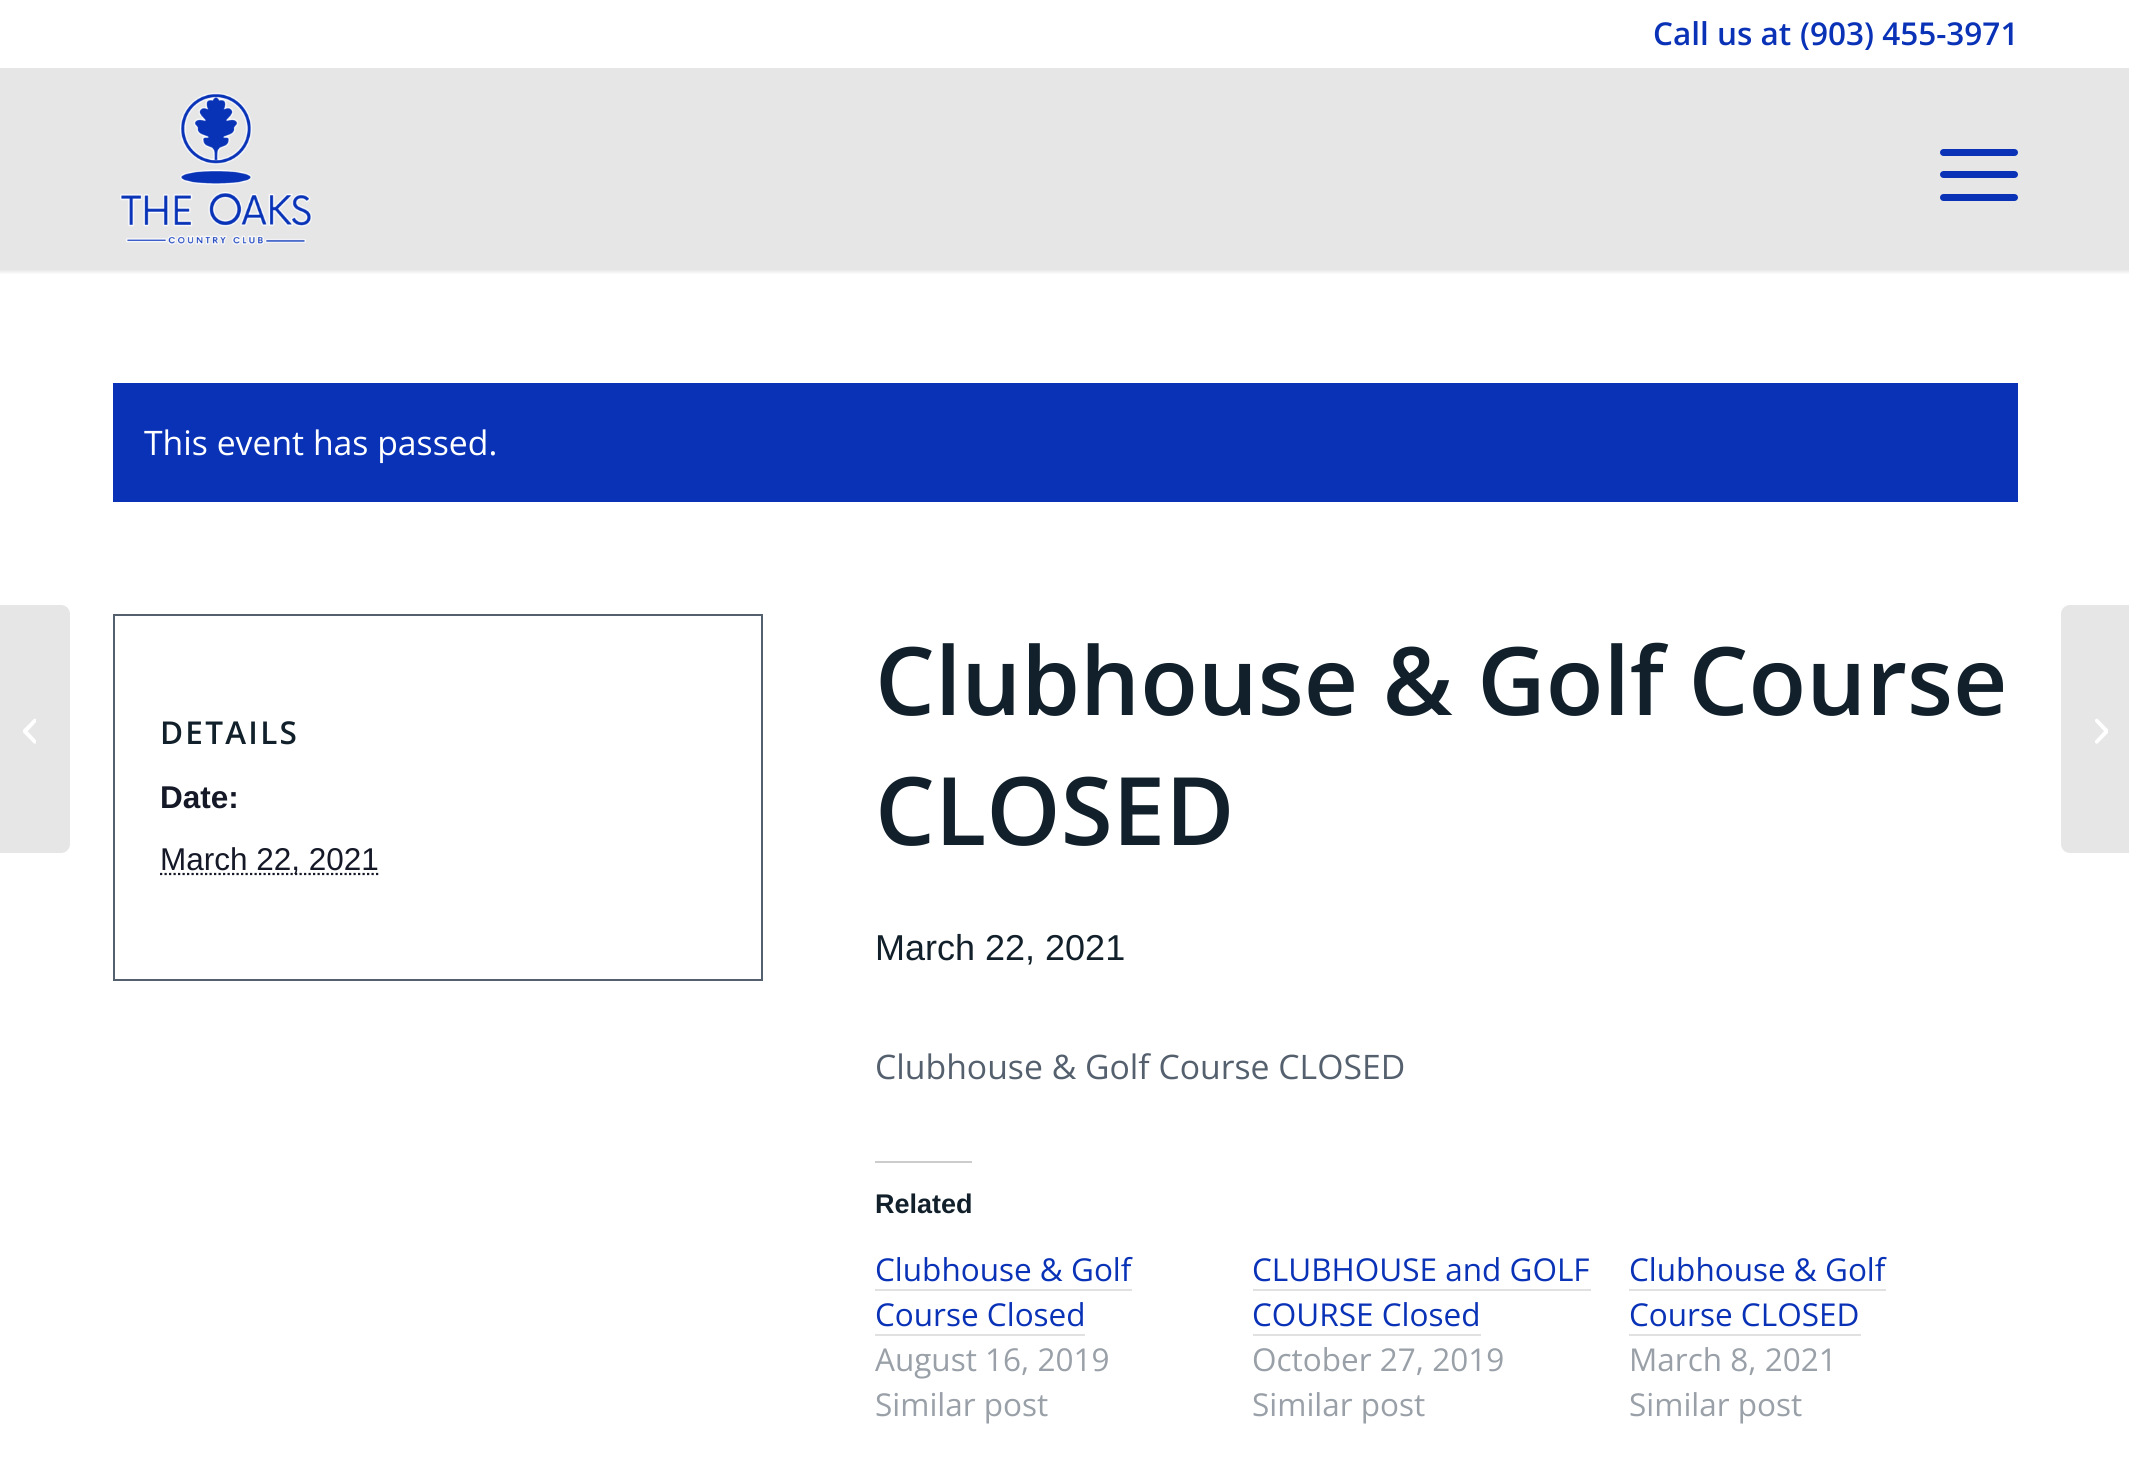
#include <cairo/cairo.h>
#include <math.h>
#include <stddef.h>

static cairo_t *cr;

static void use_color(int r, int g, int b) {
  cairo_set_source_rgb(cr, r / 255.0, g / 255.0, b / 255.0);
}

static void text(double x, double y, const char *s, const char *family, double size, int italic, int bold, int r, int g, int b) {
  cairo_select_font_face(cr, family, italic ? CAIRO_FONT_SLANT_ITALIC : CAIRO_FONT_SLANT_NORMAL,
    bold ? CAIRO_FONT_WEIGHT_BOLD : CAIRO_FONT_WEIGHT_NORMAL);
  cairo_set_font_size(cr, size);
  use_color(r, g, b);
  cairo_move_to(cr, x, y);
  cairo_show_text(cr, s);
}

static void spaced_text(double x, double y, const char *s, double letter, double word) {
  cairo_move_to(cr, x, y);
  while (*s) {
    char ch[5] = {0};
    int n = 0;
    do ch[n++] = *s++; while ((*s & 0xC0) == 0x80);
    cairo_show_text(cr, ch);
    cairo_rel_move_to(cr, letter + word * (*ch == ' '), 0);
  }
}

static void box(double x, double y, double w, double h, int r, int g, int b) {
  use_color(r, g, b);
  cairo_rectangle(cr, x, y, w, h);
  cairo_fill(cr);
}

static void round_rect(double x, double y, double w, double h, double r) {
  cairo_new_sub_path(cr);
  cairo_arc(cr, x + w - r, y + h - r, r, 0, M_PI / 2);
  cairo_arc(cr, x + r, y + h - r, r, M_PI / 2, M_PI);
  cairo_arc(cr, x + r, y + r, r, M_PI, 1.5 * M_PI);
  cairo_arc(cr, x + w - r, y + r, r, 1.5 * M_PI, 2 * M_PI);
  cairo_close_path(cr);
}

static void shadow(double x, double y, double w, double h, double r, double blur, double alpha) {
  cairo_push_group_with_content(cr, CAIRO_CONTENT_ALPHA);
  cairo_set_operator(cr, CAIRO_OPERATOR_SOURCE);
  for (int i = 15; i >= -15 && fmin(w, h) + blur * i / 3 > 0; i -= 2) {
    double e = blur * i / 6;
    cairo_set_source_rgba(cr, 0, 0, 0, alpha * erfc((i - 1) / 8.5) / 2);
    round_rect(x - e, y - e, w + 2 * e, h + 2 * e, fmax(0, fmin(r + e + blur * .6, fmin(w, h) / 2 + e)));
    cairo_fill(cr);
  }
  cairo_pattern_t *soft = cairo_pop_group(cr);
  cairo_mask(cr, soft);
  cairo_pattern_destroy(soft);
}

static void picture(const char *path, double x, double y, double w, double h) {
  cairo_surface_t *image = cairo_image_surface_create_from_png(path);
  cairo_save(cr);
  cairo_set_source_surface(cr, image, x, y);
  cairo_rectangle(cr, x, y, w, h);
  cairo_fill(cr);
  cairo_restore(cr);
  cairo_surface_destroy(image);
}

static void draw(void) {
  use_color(255, 255, 255);
  cairo_paint(cr);
  cairo_save(cr);
  cairo_rectangle(cr, 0, 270, 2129, 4);
  cairo_clip(cr);
  use_color(0, 0, 0);
  shadow(-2, -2, 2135, 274, 0, 2, 0.1);
  cairo_restore(cr);
  box(0, 68, 2129, 202, 230, 230, 230);
  picture("img_01.png", 120, 92, 192, 153);
  use_color(9, 50, 183);
  round_rect(1940, 171, 78, 7, 3.5);
  cairo_fill(cr);
  round_rect(1940, 149, 78, 7, 3.5);
  cairo_fill(cr);
  round_rect(1940, 194, 78, 7, 3.5);
  cairo_fill(cr);
  use_color(230, 230, 230);
  cairo_new_path(cr);
  cairo_move_to(cr, 0, 605);
  cairo_line_to(cr, 61, 605);
  cairo_curve_to(cr, 66, 605, 70, 609, 70, 614);
  cairo_line_to(cr, 70, 844);
  cairo_curve_to(cr, 70, 849, 66, 853, 61, 853);
  cairo_line_to(cr, 0, 853);
  cairo_close_path(cr);
  cairo_fill(cr);
  picture("img_02.png", 23, 718, 13, 26);
  box(113, 383, 1905, 119, 9, 50, 183);
  cairo_rectangle(cr, 114, 615, 648, 365);
  use_color(85, 96, 110);
  cairo_stroke(cr);
  cairo_new_path(cr);
  cairo_move_to(cr, 160, 874);
  cairo_line_to(cr, 378.5, 874);
  use_color(20, 24, 39);
  cairo_set_line_width(cr, 2.2);
  cairo_set_dash(cr, (double[]){2.25, 2.25}, 2, 0);
  cairo_stroke(cr);
  box(875, 1161, 97, 2, 204, 204, 204);
  box(875, 1289, 257, 2, 225, 225, 225);
  box(875, 1334, 210, 2, 225, 225, 225);
  box(1253, 1289, 338, 2, 225, 225, 225);
  box(1253, 1334, 228, 2, 225, 225, 225);
  box(1629, 1289, 257, 2, 225, 225, 225);
  box(1629, 1334, 232, 2, 225, 225, 225);
  use_color(230, 230, 230);
  cairo_new_path(cr);
  cairo_move_to(cr, 2070, 605);
  cairo_line_to(cr, 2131, 605);
  cairo_line_to(cr, 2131, 853);
  cairo_line_to(cr, 2070, 853);
  cairo_curve_to(cr, 2065, 853, 2061, 849, 2061, 844);
  cairo_line_to(cr, 2061, 614);
  cairo_curve_to(cr, 2061, 609, 2065, 605, 2070, 605);
  cairo_close_path(cr);
  cairo_fill(cr);
  picture("img_03.png", 2095, 718, 13, 26);
  text(1653, 45, "Call us at", "Open Sans SemiBold", 31.5, 0, 0, 9, 50, 183);
  text(1800, 45, "(903) 455-3971", "Open Sans SemiBold", 31.5, 0, 0, 9, 50, 183);
  text(144, 455, "This event has passed.", "Open Sans", 33.75, 0, 0, 255, 255, 255);
  cairo_select_font_face(cr, "Open Sans SemiBold", CAIRO_FONT_SLANT_NORMAL, CAIRO_FONT_WEIGHT_NORMAL);
  cairo_set_font_size(cr, 31.5);
  use_color(17, 32, 42);
  spaced_text(160, 744, "DETAILS", 2.25, 0);
  text(160, 808, "Date:", "Liberation Sans", 31.5, 0, 1, 20, 24, 39);
  text(160, 870, "March 22, 2021", "Liberation Sans", 31.5, 0, 0, 20, 24, 39);
  text(875, 715, "Clubhouse & Golf Course", "Open Sans SemiBold", 94.5, 0, 0, 17, 32, 42);
  text(875, 845, "CLOSED", "Open Sans SemiBold", 94.5, 0, 0, 17, 32, 42);
  text(875, 960, "March 22, 2021", "Liberation Sans", 36, 0, 0, 17, 32, 42);
  text(875, 1079, "Clubhouse & Golf Course CLOSED", "Open Sans", 33.75, 0, 0, 85, 96, 110);
  text(875, 1213, "Related", "Liberation Sans", 27, 0, 1, 17, 32, 42);
  text(875, 1281, "Clubhouse & Golf", "Open Sans", 31.5, 0, 0, 9, 50, 183);
  text(875, 1326, "Course Closed", "Open Sans", 31.5, 0, 0, 9, 50, 183);
  text(875, 1371, "August 16, 2019", "Open Sans", 31.5, 0, 0, 153, 160, 168);
  text(875, 1416, "Similar post", "Open Sans", 31.5, 0, 0, 153, 160, 168);
  text(1252, 1281, "CLUBHOUSE and GOLF", "Open Sans", 31.5, 0, 0, 9, 50, 183);
  text(1252, 1326, "COURSE Closed", "Open Sans", 31.5, 0, 0, 9, 50, 183);
  text(1252, 1371, "October 27, 2019", "Open Sans", 31.5, 0, 0, 153, 160, 168);
  text(1252, 1416, "Similar post", "Open Sans", 31.5, 0, 0, 153, 160, 168);
  text(1629, 1281, "Clubhouse & Golf", "Open Sans", 31.5, 0, 0, 9, 50, 183);
  text(1629, 1326, "Course CLOSED", "Open Sans", 31.5, 0, 0, 9, 50, 183);
  text(1629, 1371, "March 8, 2021", "Open Sans", 31.5, 0, 0, 153, 160, 168);
  text(1629, 1416, "Similar post", "Open Sans", 31.5, 0, 0, 153, 160, 168);
}

int main(void) {
  cairo_surface_t *surface = cairo_image_surface_create(CAIRO_FORMAT_RGB24, 2129, 1458);
  cr = cairo_create(surface);
  cairo_font_options_t *options = cairo_font_options_create();
  cairo_font_options_set_hint_metrics(options, CAIRO_HINT_METRICS_OFF);
  cairo_font_options_set_hint_style(options, CAIRO_HINT_STYLE_NONE);
  cairo_set_font_options(cr, options);
  cairo_set_miter_limit(cr, 4);
  draw();
  cairo_surface_write_to_png(surface, "out.png");
  cairo_font_options_destroy(options);
  cairo_destroy(cr);
  cairo_surface_destroy(surface);
  return 0;
}
